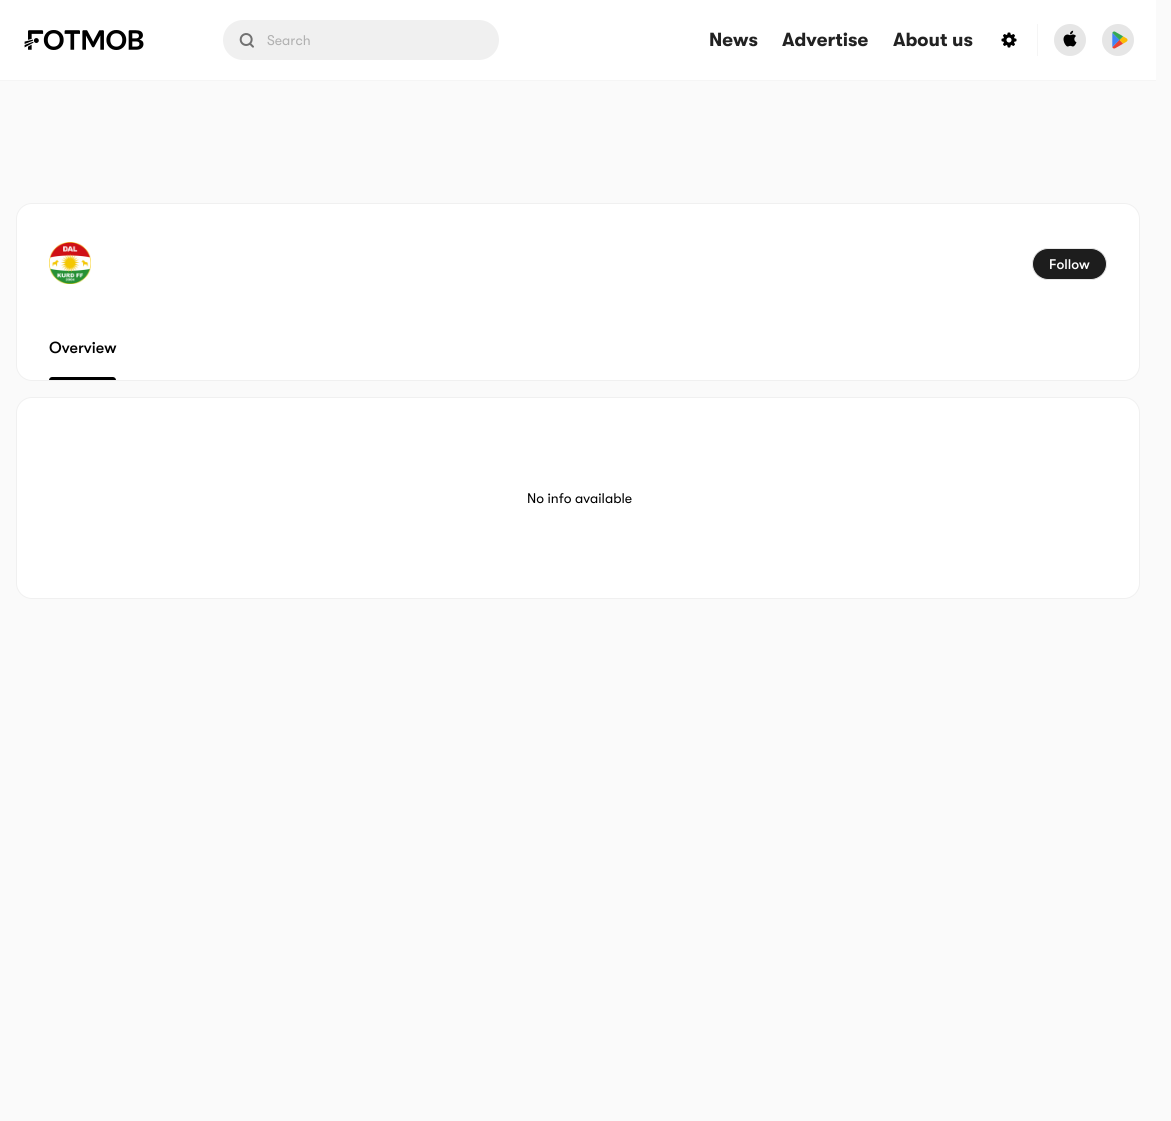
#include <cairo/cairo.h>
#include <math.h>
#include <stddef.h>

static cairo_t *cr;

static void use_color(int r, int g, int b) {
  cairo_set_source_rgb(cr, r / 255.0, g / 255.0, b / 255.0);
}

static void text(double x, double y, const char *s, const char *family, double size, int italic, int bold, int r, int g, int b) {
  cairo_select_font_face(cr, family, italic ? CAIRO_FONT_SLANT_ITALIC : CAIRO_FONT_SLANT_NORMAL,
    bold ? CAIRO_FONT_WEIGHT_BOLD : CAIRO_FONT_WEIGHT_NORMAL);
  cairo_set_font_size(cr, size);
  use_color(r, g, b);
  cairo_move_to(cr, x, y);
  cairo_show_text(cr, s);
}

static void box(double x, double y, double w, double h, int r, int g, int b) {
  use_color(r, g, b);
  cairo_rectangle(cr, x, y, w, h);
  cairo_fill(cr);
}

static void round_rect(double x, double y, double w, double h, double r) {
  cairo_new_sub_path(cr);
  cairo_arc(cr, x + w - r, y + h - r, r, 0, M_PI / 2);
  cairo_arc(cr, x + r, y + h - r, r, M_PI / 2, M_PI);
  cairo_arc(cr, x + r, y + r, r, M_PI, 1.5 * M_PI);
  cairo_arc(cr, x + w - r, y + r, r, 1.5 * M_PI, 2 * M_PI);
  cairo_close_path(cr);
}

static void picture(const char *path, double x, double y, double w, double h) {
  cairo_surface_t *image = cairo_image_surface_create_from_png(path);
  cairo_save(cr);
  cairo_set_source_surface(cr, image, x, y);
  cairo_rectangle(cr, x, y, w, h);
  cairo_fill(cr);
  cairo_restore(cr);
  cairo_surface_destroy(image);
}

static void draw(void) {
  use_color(250, 250, 250);
  cairo_paint(cr);
  box(0, 80, 1156, 1, 245, 245, 245);
  box(0, 0, 1156, 80, 255, 255, 255);
  picture("img_01.png", 24, 30, 120, 20);
  use_color(240, 240, 240);
  round_rect(223, 20, 276, 40, 20);
  cairo_fill(cr);
  picture("img_02.png", 239, 33, 15, 15);
  picture("img_03.png", 1001, 32, 16, 16);
  box(1037, 24, 1, 32, 245, 245, 245);
  picture("img_04.png", 1054, 24, 32, 32);
  picture("img_05.png", 1102, 24, 32, 32);
  use_color(255, 255, 255);
  round_rect(16.5, 203.5, 1123, 177, 15.5);
  cairo_fill_preserve(cr);
  use_color(240, 240, 240);
  cairo_set_line_width(cr, 1);
  cairo_stroke(cr);
  picture("img_06.png", 49, 242, 42, 42);
  use_color(29, 29, 29);
  round_rect(1032.5, 248.5, 74, 31, 15.5);
  cairo_fill_preserve(cr);
  use_color(232, 232, 232);
  cairo_stroke(cr);
  use_color(0, 0, 0);
  cairo_new_path(cr);
  cairo_move_to(cr, 52, 377);
  cairo_line_to(cr, 113, 377);
  cairo_curve_to(cr, 114.5, 377, 116, 378.5, 116, 380);
  cairo_line_to(cr, 49, 380);
  cairo_curve_to(cr, 49, 378.5, 50.5, 377, 52, 377);
  cairo_close_path(cr);
  cairo_fill(cr);
  use_color(255, 255, 255);
  round_rect(16.5, 397.5, 1123, 201, 15.5);
  cairo_fill_preserve(cr);
  use_color(240, 240, 240);
  cairo_stroke(cr);
  text(267, 45, "Search", "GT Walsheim", 14, 0, 0, 177, 177, 177);
  text(709, 46, "News", "GT Walsheim", 19, 0, 1, 34, 34, 34);
  text(782, 46, "Advertise", "GT Walsheim", 19, 0, 1, 34, 34, 34);
  text(893, 46, "About us", "GT Walsheim", 19, 0, 1, 34, 34, 34);
  text(1049, 269, "Follow", "GT Walsheim Medium", 14, 0, 0, 255, 255, 255);
  text(49, 353, "Overview", "GT Walsheim Medium", 16, 0, 0, 0, 0, 0);
  text(527, 503, "No info available", "GT Walsheim", 14, 0, 0, 0, 0, 0);
}

int main(void) {
  cairo_surface_t *surface = cairo_image_surface_create(CAIRO_FORMAT_RGB24, 1171, 1121);
  cr = cairo_create(surface);
  cairo_font_options_t *options = cairo_font_options_create();
  cairo_font_options_set_hint_metrics(options, CAIRO_HINT_METRICS_OFF);
  cairo_font_options_set_hint_style(options, CAIRO_HINT_STYLE_NONE);
  cairo_set_font_options(cr, options);
  cairo_set_miter_limit(cr, 4);
  draw();
  cairo_surface_write_to_png(surface, "out.png");
  cairo_font_options_destroy(options);
  cairo_destroy(cr);
  cairo_surface_destroy(surface);
  return 0;
}
